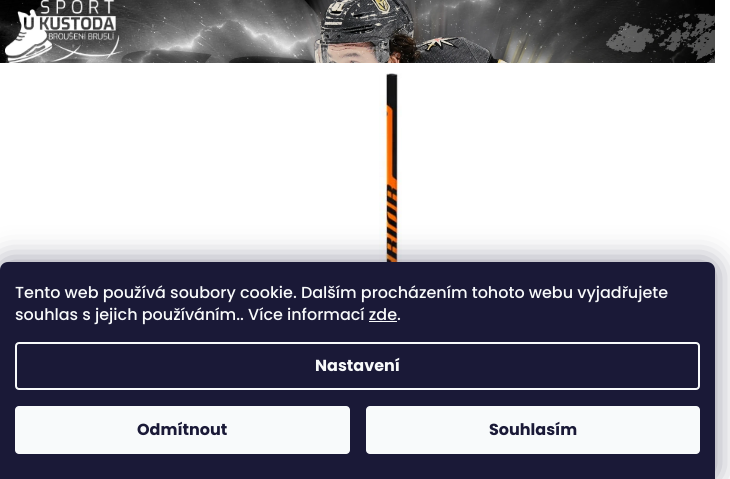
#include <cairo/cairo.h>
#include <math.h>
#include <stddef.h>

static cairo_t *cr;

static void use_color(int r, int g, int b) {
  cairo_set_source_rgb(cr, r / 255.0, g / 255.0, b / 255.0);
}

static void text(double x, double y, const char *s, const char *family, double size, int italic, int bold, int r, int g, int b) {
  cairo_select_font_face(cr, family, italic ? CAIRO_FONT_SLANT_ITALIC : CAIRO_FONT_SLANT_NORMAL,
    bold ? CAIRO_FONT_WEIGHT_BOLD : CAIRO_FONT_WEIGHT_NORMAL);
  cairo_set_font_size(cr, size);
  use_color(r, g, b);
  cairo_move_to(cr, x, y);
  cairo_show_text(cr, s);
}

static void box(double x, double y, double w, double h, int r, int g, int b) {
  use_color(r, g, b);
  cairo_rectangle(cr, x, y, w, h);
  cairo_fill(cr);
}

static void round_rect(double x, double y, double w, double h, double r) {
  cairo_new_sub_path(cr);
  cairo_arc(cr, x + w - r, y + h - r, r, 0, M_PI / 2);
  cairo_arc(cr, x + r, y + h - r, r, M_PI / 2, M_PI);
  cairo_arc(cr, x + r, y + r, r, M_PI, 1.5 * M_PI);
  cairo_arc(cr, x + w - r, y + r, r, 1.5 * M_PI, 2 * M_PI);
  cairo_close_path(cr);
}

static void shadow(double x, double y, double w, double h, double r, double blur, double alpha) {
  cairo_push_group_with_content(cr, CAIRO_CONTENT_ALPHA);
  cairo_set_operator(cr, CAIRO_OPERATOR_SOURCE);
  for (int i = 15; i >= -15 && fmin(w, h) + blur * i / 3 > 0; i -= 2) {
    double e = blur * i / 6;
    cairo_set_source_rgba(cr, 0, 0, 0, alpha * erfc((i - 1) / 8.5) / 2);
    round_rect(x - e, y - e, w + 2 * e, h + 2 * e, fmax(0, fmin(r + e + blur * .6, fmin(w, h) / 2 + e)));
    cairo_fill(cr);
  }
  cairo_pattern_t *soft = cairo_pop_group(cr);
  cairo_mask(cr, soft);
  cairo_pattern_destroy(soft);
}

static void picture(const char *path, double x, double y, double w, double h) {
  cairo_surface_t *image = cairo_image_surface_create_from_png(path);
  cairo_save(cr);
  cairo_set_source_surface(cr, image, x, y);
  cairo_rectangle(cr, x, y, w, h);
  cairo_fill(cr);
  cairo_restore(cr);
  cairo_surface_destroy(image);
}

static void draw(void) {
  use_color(255, 255, 255);
  cairo_paint(cr);
  picture("img_01.png", 0, 0, 715, 63);
  picture("img_02.png", 5, 0, 119, 63);
  picture("img_03.png", 379, 73, 23, 189);
  use_color(27, 25, 57);
  shadow(0, 262, 715, 217, 8, 15, 0.5);
  use_color(26, 25, 55);
  cairo_new_path(cr);
  cairo_move_to(cr, 8, 262);
  cairo_line_to(cr, 707, 262);
  cairo_curve_to(cr, 711.5, 262, 715, 265.5, 715, 270);
  cairo_line_to(cr, 715, 479);
  cairo_line_to(cr, 0, 479);
  cairo_line_to(cr, 0, 270);
  cairo_curve_to(cr, 0, 265.5, 3.5, 262, 8, 262);
  cairo_close_path(cr);
  cairo_fill(cr);
  box(369, 321, 28, 1, 248, 250, 251);
  round_rect(16, 343, 683, 46, 3);
  cairo_stroke(cr);
  round_rect(15, 406, 335, 48, 4);
  cairo_fill(cr);
  round_rect(366, 406, 334, 48, 4);
  cairo_fill(cr);
  text(15, 298, "Tento web používá soubory cookie. Dalším procházením tohoto webu vyjadřujete", "Poppins Medium", 16, 0, 0, 248, 250, 251);
  text(15, 320, "souhlas s jejich používáním.. Více informací zde.", "Poppins Medium", 16, 0, 0, 248, 250, 251);
  text(315, 371, "Nastavení", "Poppins", 16, 0, 1, 248, 250, 251);
  text(137, 435, "Odmítnout", "Poppins", 16, 0, 1, 26, 25, 55);
  text(489, 435, "Souhlasím", "Poppins", 16, 0, 1, 26, 25, 55);
}

int main(void) {
  cairo_surface_t *surface = cairo_image_surface_create(CAIRO_FORMAT_RGB24, 730, 479);
  cr = cairo_create(surface);
  cairo_font_options_t *options = cairo_font_options_create();
  cairo_font_options_set_hint_metrics(options, CAIRO_HINT_METRICS_OFF);
  cairo_font_options_set_hint_style(options, CAIRO_HINT_STYLE_NONE);
  cairo_set_font_options(cr, options);
  cairo_set_miter_limit(cr, 4);
  draw();
  cairo_surface_write_to_png(surface, "out.png");
  cairo_font_options_destroy(options);
  cairo_destroy(cr);
  cairo_surface_destroy(surface);
  return 0;
}
